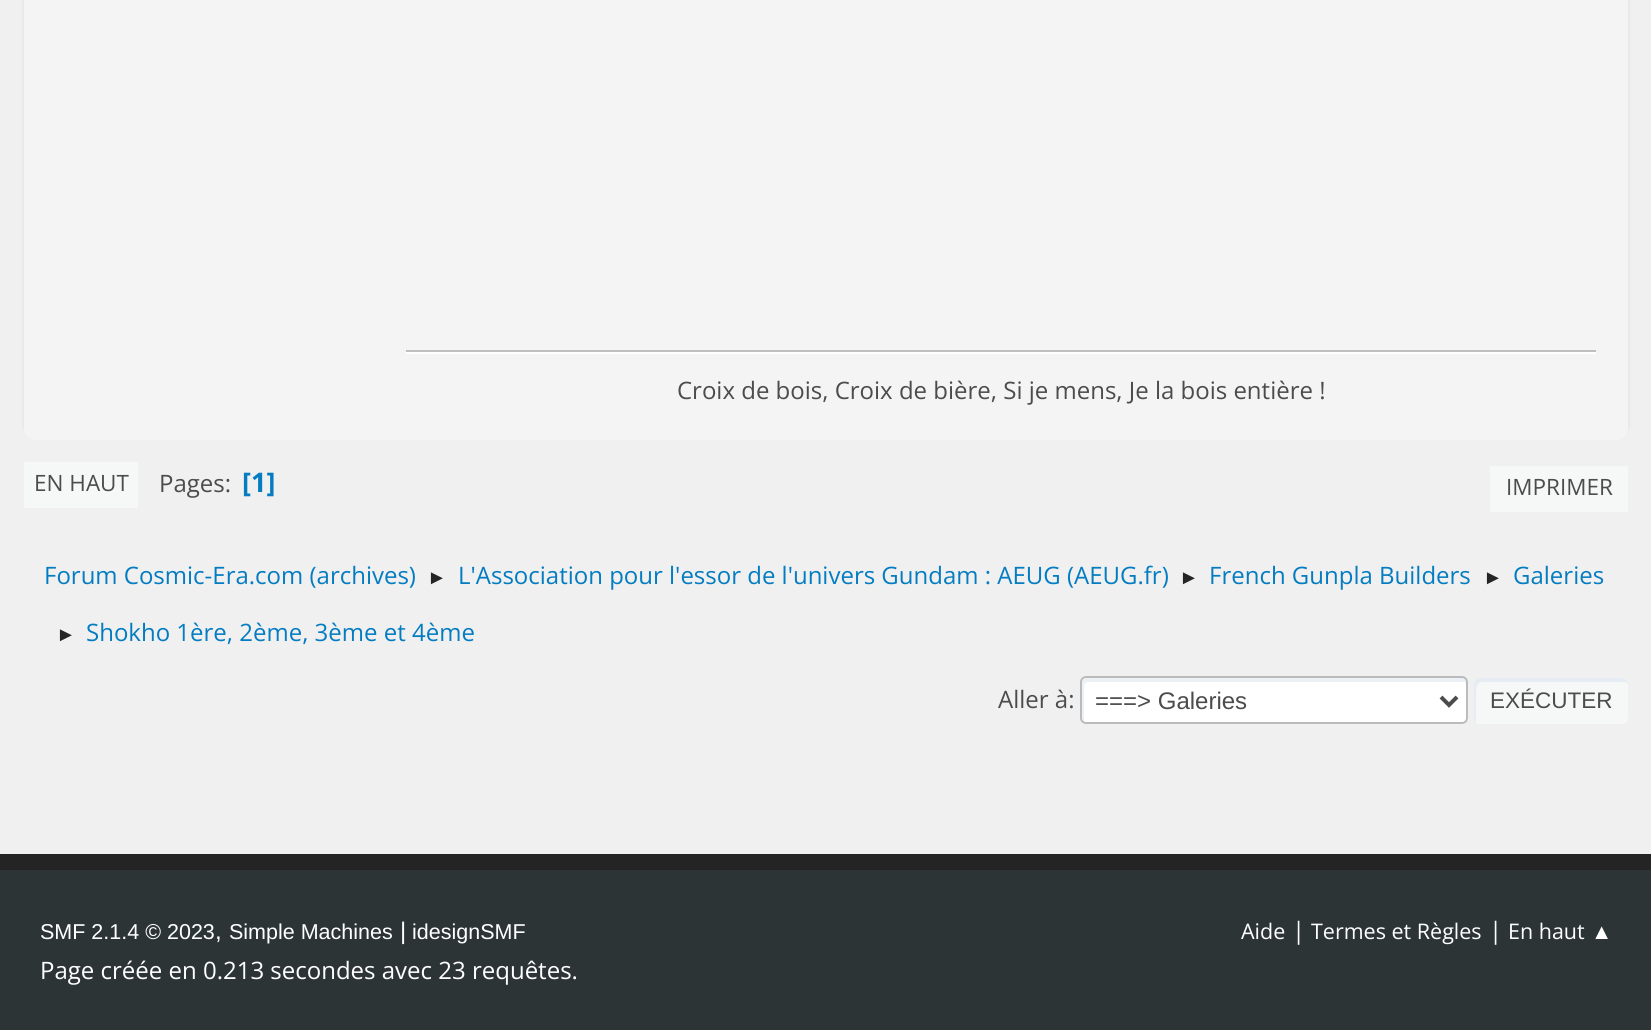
#include <cairo/cairo.h>
#include <math.h>
#include <stddef.h>

static cairo_t *cr;

static void use_color(int r, int g, int b) {
  cairo_set_source_rgb(cr, r / 255.0, g / 255.0, b / 255.0);
}

static void text(double x, double y, const char *s, const char *family, double size, int italic, int bold, int r, int g, int b) {
  cairo_select_font_face(cr, family, italic ? CAIRO_FONT_SLANT_ITALIC : CAIRO_FONT_SLANT_NORMAL,
    bold ? CAIRO_FONT_WEIGHT_BOLD : CAIRO_FONT_WEIGHT_NORMAL);
  cairo_set_font_size(cr, size);
  use_color(r, g, b);
  cairo_move_to(cr, x, y);
  cairo_show_text(cr, s);
}

static void box(double x, double y, double w, double h, int r, int g, int b) {
  use_color(r, g, b);
  cairo_rectangle(cr, x, y, w, h);
  cairo_fill(cr);
}

static void round_rect(double x, double y, double w, double h, double r) {
  cairo_new_sub_path(cr);
  cairo_arc(cr, x + w - r, y + h - r, r, 0, M_PI / 2);
  cairo_arc(cr, x + r, y + h - r, r, M_PI / 2, M_PI);
  cairo_arc(cr, x + r, y + r, r, M_PI, 1.5 * M_PI);
  cairo_arc(cr, x + w - r, y + r, r, 1.5 * M_PI, 2 * M_PI);
  cairo_close_path(cr);
}

static void shadow(double x, double y, double w, double h, double r, double blur, double alpha) {
  cairo_push_group_with_content(cr, CAIRO_CONTENT_ALPHA);
  cairo_set_operator(cr, CAIRO_OPERATOR_SOURCE);
  for (int i = 15; i >= -15 && fmin(w, h) + blur * i / 3 > 0; i -= 2) {
    double e = blur * i / 6;
    cairo_set_source_rgba(cr, 0, 0, 0, alpha * erfc((i - 1) / 8.5) / 2);
    round_rect(x - e, y - e, w + 2 * e, h + 2 * e, fmax(0, fmin(r + e + blur * .6, fmin(w, h) / 2 + e)));
    cairo_fill(cr);
  }
  cairo_pattern_t *soft = cairo_pop_group(cr);
  cairo_mask(cr, soft);
  cairo_pattern_destroy(soft);
}

static void draw(void) {
  use_color(240, 240, 240);
  cairo_paint(cr);
  use_color(0, 0, 0);
  shadow(24, -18, 1604, 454, 12, 2, 0.1);
  use_color(244, 244, 244);
  round_rect(24, -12, 1604, 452, 12);
  cairo_fill(cr);
  box(406, 352, 1190, 2, 255, 255, 255);
  box(406, 350, 1190, 2, 191, 191, 191);
  box(24, 462, 114, 46, 246, 248, 248);
  box(1490, 466, 138, 46, 246, 248, 248);
  use_color(255, 255, 255);
  round_rect(1080, 676, 388, 48, 6);
  cairo_fill(cr);
  use_color(236, 241, 248);
  cairo_new_path(cr);
  cairo_move_to(cr, 1088, 682);
  cairo_line_to(cr, 1464, 682);
  cairo_line_to(cr, 1466, 683);
  cairo_line_to(cr, 1466, 682);
  cairo_curve_to(cr, 1466, 680, 1464, 678, 1462, 678);
  cairo_line_to(cr, 1086, 678);
  cairo_curve_to(cr, 1084, 678, 1082, 680, 1082, 682);
  cairo_line_to(cr, 1082, 718);
  cairo_curve_to(cr, 1082, 719, 1083, 721, 1084, 721);
  cairo_line_to(cr, 1084, 686);
  cairo_curve_to(cr, 1084, 684, 1086, 682, 1088, 682);
  cairo_close_path(cr);
  cairo_fill(cr);
  round_rect(1081, 677, 386, 46, 5);
  use_color(187, 187, 187);
  cairo_stroke(cr);
  cairo_new_path(cr);
  cairo_move_to(cr, 1441, 697);
  cairo_line_to(cr, 1449, 705);
  cairo_line_to(cr, 1457, 697);
  use_color(76, 76, 76);
  cairo_set_line_width(cr, 4);
  cairo_stroke(cr);
  use_color(246, 248, 248);
  round_rect(1474, 678, 154, 46, 6);
  cairo_fill(cr);
  use_color(229, 236, 243);
  cairo_new_path(cr);
  cairo_move_to(cr, 1482, 682);
  cairo_line_to(cr, 1625, 682);
  cairo_line_to(cr, 1628, 684);
  cairo_curve_to(cr, 1628, 681, 1625, 678, 1622, 678);
  cairo_line_to(cr, 1480, 678);
  cairo_curve_to(cr, 1477, 678, 1474, 681, 1474, 684);
  cairo_line_to(cr, 1474, 718);
  cairo_curve_to(cr, 1474, 720, 1475, 721, 1476, 722);
  cairo_line_to(cr, 1476, 694);
  cairo_curve_to(cr, 1476, 689, 1476, 682, 1482, 682);
  cairo_close_path(cr);
  cairo_fill(cr);
  box(0, 870, 1651, 160, 45, 52, 54);
  box(0, 854, 1651, 16, 36, 36, 36);
  text(677, 399, "Croix de bois, Croix de bière, Si je mens, Je la bois entière !", "Open Sans", 24, 0, 0, 76, 76, 76);
  text(34, 491, "EN HAUT", "Open Sans", 22.5, 0, 0, 76, 76, 76);
  text(159, 492, "Pages:", "Open Sans", 24, 0, 0, 76, 76, 76);
  text(242, 492, "[1]", "Open Sans", 27, 0, 1, 4, 124, 193);
  text(1506, 495, "IMPRIMER", "Open Sans", 22.5, 0, 0, 76, 76, 76);
  text(44, 584, "Forum Cosmic-Era.com (archives)", "Open Sans", 24, 0, 0, 4, 124, 193);
  text(427, 584, "►", "Liberation Sans", 20, 0, 0, 36, 36, 36);
  text(458, 584, "L'Association pour l'essor de l'univers Gundam : AEUG (AEUG.fr)", "Open Sans", 24, 0, 0, 4, 124, 193);
  text(1179, 584, "►", "Liberation Sans", 20, 0, 0, 36, 36, 36);
  text(1209, 584, "French Gunpla Builders", "Open Sans", 24, 0, 0, 4, 124, 193);
  text(1483, 584, "►", "Liberation Sans", 20, 0, 0, 36, 36, 36);
  text(1513, 584, "Galeries", "Open Sans", 24, 0, 0, 4, 124, 193);
  text(56, 641, "►", "Liberation Sans", 20, 0, 0, 36, 36, 36);
  text(86, 641, "Shokho 1ère, 2ème, 3ème et 4ème", "Open Sans", 24, 0, 0, 4, 124, 193);
  text(998, 708, "Aller à:", "Open Sans", 24, 0, 0, 76, 76, 76);
  text(1095, 709, "===> Galeries", "Liberation Sans", 24, 0, 0, 76, 76, 76);
  text(1490, 708, "EXÉCUTER", "Liberation Sans", 22.5, 0, 0, 76, 76, 76);
  text(40, 939, "SMF 2.1.4 © 2023", "Liberation Sans", 21.5, 0, 0, 255, 255, 255);
  text(215, 939, ",", "Liberation Sans", 24, 0, 0, 255, 255, 255);
  text(229, 939, "Simple Machines", "Liberation Sans", 21.5, 0, 0, 255, 255, 255);
  text(400, 939, "|", "Liberation Sans", 24, 0, 0, 255, 255, 255);
  text(412, 939, "idesignSMF", "Liberation Sans", 21.5, 0, 0, 255, 255, 255);
  text(1241, 939, "Aide", "Open Sans", 21.5, 0, 0, 255, 255, 255);
  text(1292, 939, "|", "Open Sans", 24, 0, 0, 255, 255, 255);
  text(1311, 939, "Termes et Règles", "Open Sans", 21.5, 0, 0, 255, 255, 255);
  text(1489, 939, "|", "Open Sans", 24, 0, 0, 255, 255, 255);
  text(1508, 939, "En haut", "Open Sans", 21.5, 0, 0, 255, 255, 255);
  text(1591, 939, "▲", "Liberation Sans", 21.5, 0, 0, 255, 255, 255);
  text(40, 979, "Page créée en 0.213 secondes avec 23 requêtes.", "Open Sans", 24, 0, 0, 255, 255, 255);
}

int main(void) {
  cairo_surface_t *surface = cairo_image_surface_create(CAIRO_FORMAT_RGB24, 1651, 1030);
  cr = cairo_create(surface);
  cairo_font_options_t *options = cairo_font_options_create();
  cairo_font_options_set_hint_metrics(options, CAIRO_HINT_METRICS_OFF);
  cairo_font_options_set_hint_style(options, CAIRO_HINT_STYLE_NONE);
  cairo_set_font_options(cr, options);
  cairo_set_miter_limit(cr, 4);
  draw();
  cairo_surface_write_to_png(surface, "out.png");
  cairo_font_options_destroy(options);
  cairo_destroy(cr);
  cairo_surface_destroy(surface);
  return 0;
}
